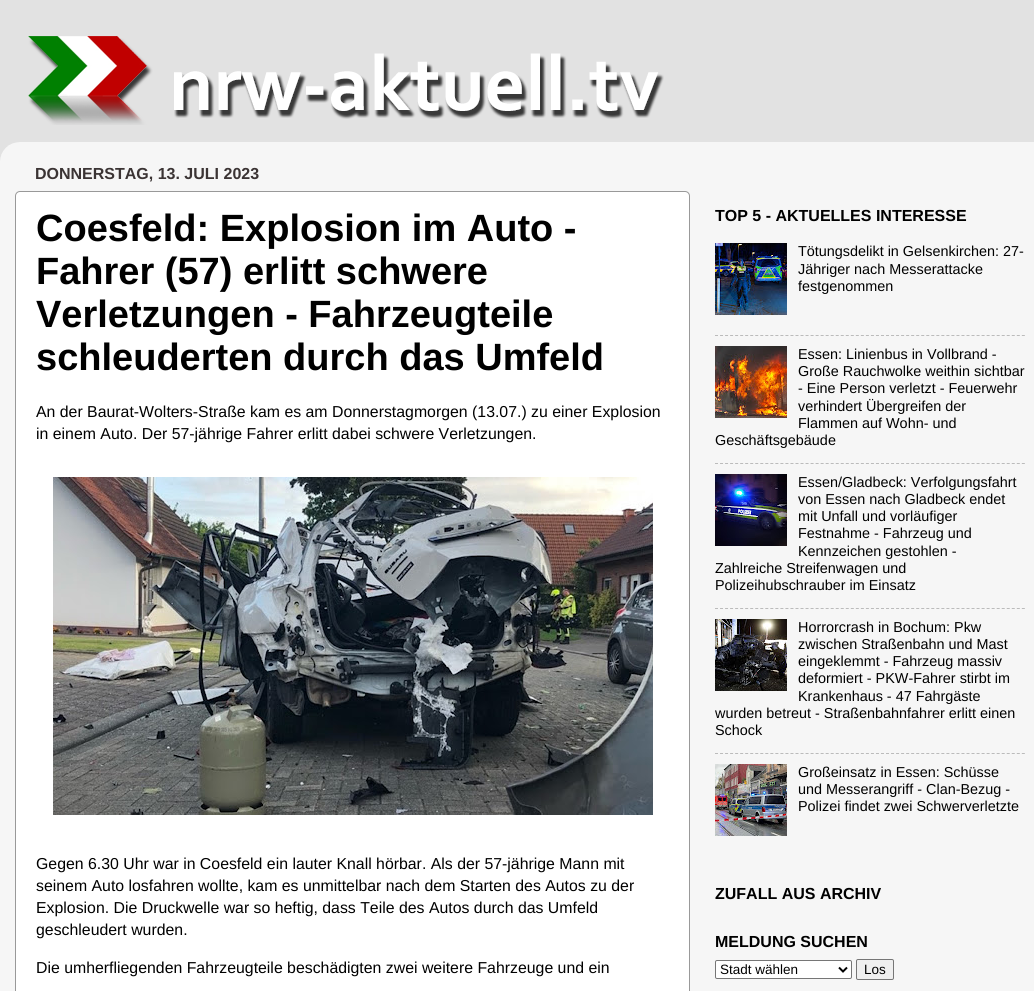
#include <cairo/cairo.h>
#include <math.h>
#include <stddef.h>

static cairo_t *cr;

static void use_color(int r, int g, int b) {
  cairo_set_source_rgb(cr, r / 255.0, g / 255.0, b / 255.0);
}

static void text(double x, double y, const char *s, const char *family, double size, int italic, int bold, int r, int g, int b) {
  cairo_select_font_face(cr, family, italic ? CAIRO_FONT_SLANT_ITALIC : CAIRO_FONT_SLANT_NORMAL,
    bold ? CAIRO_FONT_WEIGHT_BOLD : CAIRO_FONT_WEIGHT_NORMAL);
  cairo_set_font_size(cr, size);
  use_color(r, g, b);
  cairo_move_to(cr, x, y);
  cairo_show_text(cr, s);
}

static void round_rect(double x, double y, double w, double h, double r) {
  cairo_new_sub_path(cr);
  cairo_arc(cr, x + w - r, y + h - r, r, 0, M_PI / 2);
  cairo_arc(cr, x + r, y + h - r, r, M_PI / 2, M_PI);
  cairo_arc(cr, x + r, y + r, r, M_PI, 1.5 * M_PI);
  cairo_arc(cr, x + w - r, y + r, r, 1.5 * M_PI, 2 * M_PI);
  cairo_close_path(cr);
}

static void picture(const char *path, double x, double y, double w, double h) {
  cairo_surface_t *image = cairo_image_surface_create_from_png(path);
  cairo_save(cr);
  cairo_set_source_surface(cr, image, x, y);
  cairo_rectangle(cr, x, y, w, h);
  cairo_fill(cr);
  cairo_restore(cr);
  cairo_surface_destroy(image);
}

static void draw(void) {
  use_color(226, 226, 226);
  cairo_paint(cr);
  picture("img_01.png", 28, 36, 636, 89);
  picture("img_02.png", 0, 142, 1034, 849);
  use_color(255, 255, 255);
  round_rect(15.5, 191.5, 674, 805, 4.5);
  cairo_fill_preserve(cr);
  use_color(153, 153, 153);
  cairo_set_line_width(cr, 1);
  cairo_stroke(cr);
  picture("img_03.png", 53, 477, 600, 338);
  picture("img_04.png", 715, 243, 72, 72);
  cairo_new_path(cr);
  cairo_move_to(cr, 715, 335.5);
  cairo_line_to(cr, 1025, 335.5);
  use_color(187, 187, 187);
  cairo_set_dash(cr, (double[]){3, 2.03}, 2, 0);
  cairo_stroke(cr);
  picture("img_05.png", 715, 346, 72, 72);
  cairo_new_path(cr);
  cairo_move_to(cr, 715, 463.5);
  cairo_line_to(cr, 1025, 463.5);
  cairo_stroke(cr);
  picture("img_06.png", 715, 474, 72, 72);
  cairo_new_path(cr);
  cairo_move_to(cr, 715, 608.5);
  cairo_line_to(cr, 1025, 608.5);
  cairo_stroke(cr);
  picture("img_07.png", 715, 619, 72, 72);
  cairo_new_path(cr);
  cairo_move_to(cr, 715, 753.5);
  cairo_line_to(cr, 1025, 753.5);
  cairo_stroke(cr);
  picture("img_08.png", 715, 764, 72, 72);
  use_color(255, 255, 255);
  round_rect(715.5, 960.5, 136, 18, 1.5);
  cairo_fill_preserve(cr);
  use_color(118, 118, 118);
  cairo_set_dash(cr, NULL, 0, 0);
  cairo_stroke(cr);
  cairo_new_path(cr);
  cairo_move_to(cr, 839, 967.5);
  cairo_line_to(cr, 843, 971.5);
  cairo_line_to(cr, 847, 967.5);
  use_color(0, 0, 0);
  cairo_set_line_width(cr, 2);
  cairo_stroke(cr);
  use_color(239, 239, 239);
  round_rect(856.5, 959.5, 37, 20, 1.5);
  cairo_fill_preserve(cr);
  use_color(118, 118, 118);
  cairo_set_line_width(cr, 1);
  cairo_stroke(cr);
  text(35, 179, "DONNERSTAG, 13. JULI 2023", "Liberation Sans", 16, 0, 1, 59, 52, 52);
  text(36, 241, "Coesfeld: Explosion im Auto -", "Liberation Sans", 38, 0, 1, 0, 0, 0);
  text(36, 284, "Fahrer (57) erlitt schwere", "Liberation Sans", 38, 0, 1, 0, 0, 0);
  text(36, 327, "Verletzungen - Fahrzeugteile", "Liberation Sans", 38, 0, 1, 0, 0, 0);
  text(36, 370, "schleuderten durch das Umfeld", "Liberation Sans", 38, 0, 1, 0, 0, 0);
  text(36, 417, "An der Baurat-Wolters-Straße kam es am Donnerstagmorgen (13.07.) zu einer Explosion", "Liberation Sans", 15.85, 0, 0, 0, 0, 0);
  text(36, 439, "in einem Auto. Der 57-jährige Fahrer erlitt dabei schwere Verletzungen.", "Liberation Sans", 15.85, 0, 0, 0, 0, 0);
  text(36, 869, "Gegen 6.30 Uhr war in Coesfeld ein lauter Knall hörbar. Als der 57-jährige Mann mit", "Liberation Sans", 15.85, 0, 0, 0, 0, 0);
  text(36, 891, "seinem Auto losfahren wollte, kam es unmittelbar nach dem Starten des Autos zu der", "Liberation Sans", 15.85, 0, 0, 0, 0, 0);
  text(36, 913, "Explosion. Die Druckwelle war so heftig, dass Teile des Autos durch das Umfeld", "Liberation Sans", 15.85, 0, 0, 0, 0, 0);
  text(36, 935, "geschleudert wurden.", "Liberation Sans", 15.85, 0, 0, 0, 0, 0);
  text(36, 973, "Die umherfliegenden Fahrzeugteile beschädigten zwei weitere Fahrzeuge und ein", "Liberation Sans", 15.85, 0, 0, 0, 0, 0);
  text(715, 221, "TOP 5 - AKTUELLES INTERESSE", "Liberation Sans", 16, 0, 1, 0, 0, 0);
  text(798, 256, "Tötungsdelikt in Gelsenkirchen: 27-", "Liberation Sans", 14.4, 0, 0, 0, 0, 0);
  text(798, 274, "Jähriger nach Messerattacke", "Liberation Sans", 14.4, 0, 0, 0, 0, 0);
  text(798, 291, "festgenommen", "Liberation Sans", 14.4, 0, 0, 0, 0, 0);
  text(798, 359, "Essen: Linienbus in Vollbrand -", "Liberation Sans", 14.4, 0, 0, 0, 0, 0);
  text(798, 376, "Große Rauchwolke weithin sichtbar", "Liberation Sans", 14.4, 0, 0, 0, 0, 0);
  text(798, 393, "- Eine Person verletzt - Feuerwehr", "Liberation Sans", 14.4, 0, 0, 0, 0, 0);
  text(798, 411, "verhindert Übergreifen der", "Liberation Sans", 14.4, 0, 0, 0, 0, 0);
  text(798, 428, "Flammen auf Wohn- und", "Liberation Sans", 14.4, 0, 0, 0, 0, 0);
  text(715, 445, "Geschäftsgebäude", "Liberation Sans", 14.4, 0, 0, 0, 0, 0);
  text(798, 487, "Essen/Gladbeck: Verfolgungsfahrt", "Liberation Sans", 14.4, 0, 0, 0, 0, 0);
  text(798, 504, "von Essen nach Gladbeck endet", "Liberation Sans", 14.4, 0, 0, 0, 0, 0);
  text(798, 521, "mit Unfall und vorläufiger", "Liberation Sans", 14.4, 0, 0, 0, 0, 0);
  text(798, 538, "Festnahme - Fahrzeug und", "Liberation Sans", 14.4, 0, 0, 0, 0, 0);
  text(798, 556, "Kennzeichen gestohlen -", "Liberation Sans", 14.4, 0, 0, 0, 0, 0);
  text(715, 573, "Zahlreiche Streifenwagen und", "Liberation Sans", 14.4, 0, 0, 0, 0, 0);
  text(715, 590, "Polizeihubschrauber im Einsatz", "Liberation Sans", 14.4, 0, 0, 0, 0, 0);
  text(798, 632, "Horrorcrash in Bochum: Pkw", "Liberation Sans", 14.4, 0, 0, 0, 0, 0);
  text(798, 649, "zwischen Straßenbahn und Mast", "Liberation Sans", 14.4, 0, 0, 0, 0, 0);
  text(798, 666, "eingeklemmt - Fahrzeug massiv", "Liberation Sans", 14.4, 0, 0, 0, 0, 0);
  text(798, 683, "deformiert - PKW-Fahrer stirbt im", "Liberation Sans", 14.4, 0, 0, 0, 0, 0);
  text(798, 701, "Krankenhaus - 47 Fahrgäste", "Liberation Sans", 14.4, 0, 0, 0, 0, 0);
  text(715, 718, "wurden betreut - Straßenbahnfahrer erlitt einen", "Liberation Sans", 14.4, 0, 0, 0, 0, 0);
  text(715, 735, "Schock", "Liberation Sans", 14.4, 0, 0, 0, 0, 0);
  text(798, 777, "Großeinsatz in Essen: Schüsse", "Liberation Sans", 14.4, 0, 0, 0, 0, 0);
  text(798, 794, "und Messerangriff - Clan-Bezug -", "Liberation Sans", 14.4, 0, 0, 0, 0, 0);
  text(798, 811, "Polizei findet zwei Schwerverletzte", "Liberation Sans", 14.4, 0, 0, 0, 0, 0);
  text(715, 899, "ZUFALL AUS ARCHIV", "Liberation Sans", 16, 0, 1, 0, 0, 0);
  text(715, 947, "MELDUNG SUCHEN", "Liberation Sans", 16, 0, 1, 0, 0, 0);
  text(720, 974, "Stadt wählen", "Liberation Sans", 13.5, 0, 0, 0, 0, 0);
  text(864, 974, "Los", "Liberation Sans", 13.5, 0, 0, 0, 0, 0);
}

int main(void) {
  cairo_surface_t *surface = cairo_image_surface_create(CAIRO_FORMAT_RGB24, 1034, 991);
  cr = cairo_create(surface);
  cairo_font_options_t *options = cairo_font_options_create();
  cairo_font_options_set_hint_metrics(options, CAIRO_HINT_METRICS_OFF);
  cairo_font_options_set_hint_style(options, CAIRO_HINT_STYLE_NONE);
  cairo_set_font_options(cr, options);
  cairo_set_miter_limit(cr, 4);
  draw();
  cairo_surface_write_to_png(surface, "out.png");
  cairo_font_options_destroy(options);
  cairo_destroy(cr);
  cairo_surface_destroy(surface);
  return 0;
}
